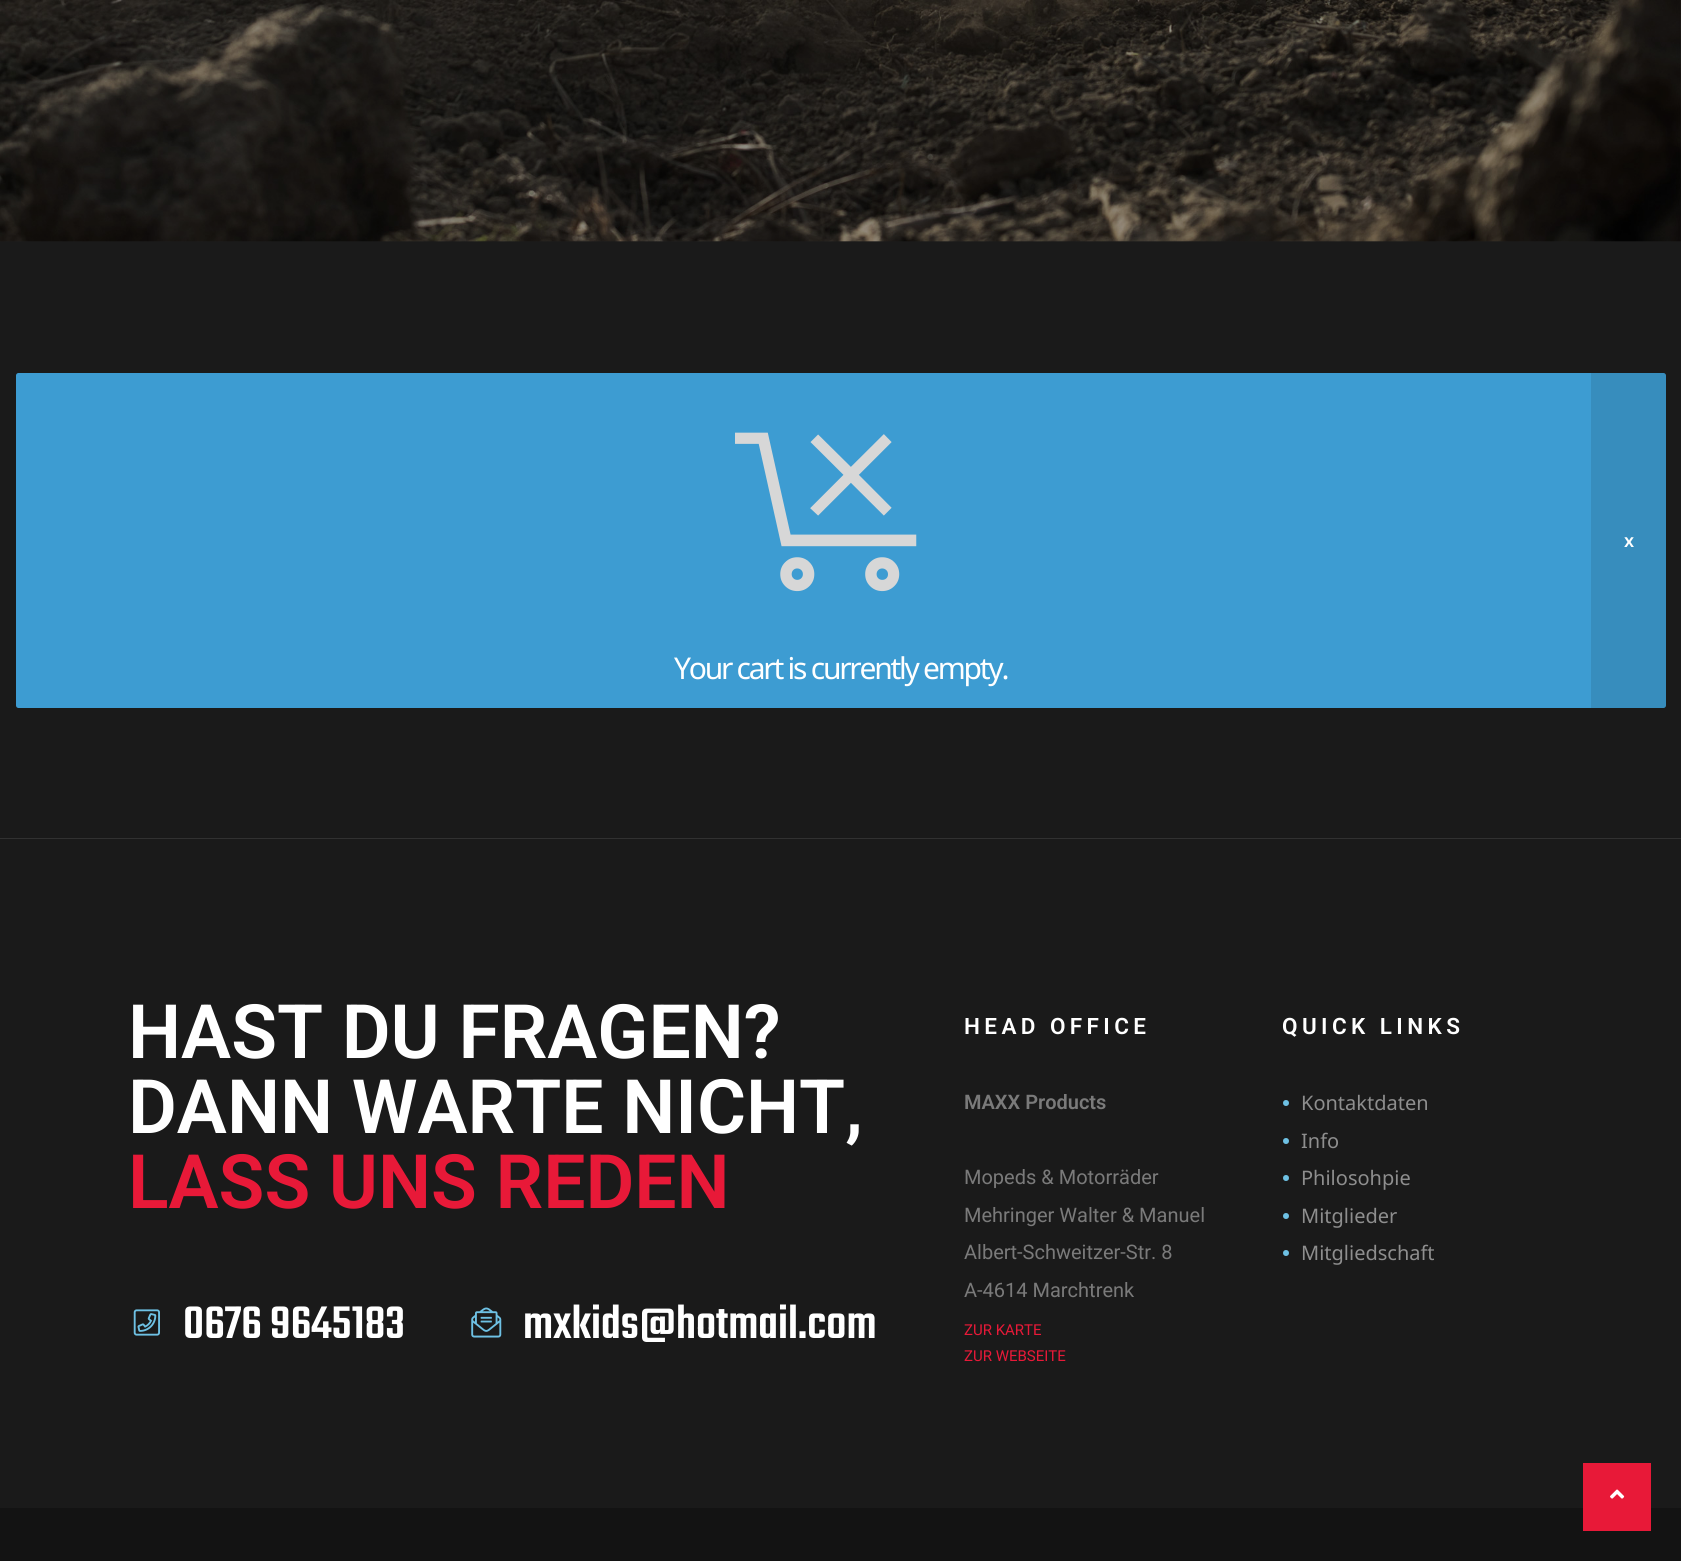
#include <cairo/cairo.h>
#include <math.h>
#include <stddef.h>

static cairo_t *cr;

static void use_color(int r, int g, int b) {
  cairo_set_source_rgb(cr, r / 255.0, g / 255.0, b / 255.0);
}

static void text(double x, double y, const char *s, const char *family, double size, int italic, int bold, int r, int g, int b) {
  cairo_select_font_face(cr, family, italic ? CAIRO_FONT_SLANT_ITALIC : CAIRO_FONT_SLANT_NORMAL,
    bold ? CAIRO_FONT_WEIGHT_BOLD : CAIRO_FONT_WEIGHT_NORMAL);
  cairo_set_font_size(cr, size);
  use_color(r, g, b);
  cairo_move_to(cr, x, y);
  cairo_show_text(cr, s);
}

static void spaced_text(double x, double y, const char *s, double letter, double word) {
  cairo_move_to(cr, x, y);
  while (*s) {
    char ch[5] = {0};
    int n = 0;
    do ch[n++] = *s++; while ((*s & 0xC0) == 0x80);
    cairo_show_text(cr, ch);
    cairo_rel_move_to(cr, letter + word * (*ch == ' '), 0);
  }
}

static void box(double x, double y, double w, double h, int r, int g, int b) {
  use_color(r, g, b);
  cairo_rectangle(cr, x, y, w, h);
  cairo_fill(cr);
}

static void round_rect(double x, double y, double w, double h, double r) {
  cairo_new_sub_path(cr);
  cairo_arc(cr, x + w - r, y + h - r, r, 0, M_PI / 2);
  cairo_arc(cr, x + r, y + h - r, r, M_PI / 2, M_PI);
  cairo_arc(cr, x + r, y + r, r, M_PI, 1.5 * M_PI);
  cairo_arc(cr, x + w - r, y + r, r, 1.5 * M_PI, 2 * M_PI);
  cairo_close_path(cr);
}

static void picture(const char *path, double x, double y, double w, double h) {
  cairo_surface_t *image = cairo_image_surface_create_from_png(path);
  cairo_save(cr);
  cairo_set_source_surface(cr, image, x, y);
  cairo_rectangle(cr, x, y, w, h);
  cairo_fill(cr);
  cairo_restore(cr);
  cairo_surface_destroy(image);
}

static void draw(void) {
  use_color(26, 26, 26);
  cairo_paint(cr);
  picture("img_01.png", 0, 0, 1681, 242);
  use_color(61, 156, 210);
  round_rect(16, 373, 1650, 335, 2.5);
  cairo_fill(cr);
  picture("img_02.png", 735, 432, 182, 160);
  cairo_set_source_rgba(cr, 0, 0, 0, 0.1);
  cairo_rectangle(cr, 1591, 373, 75, 335);
  cairo_fill(cr);
  box(0, 838, 1681, 1, 49, 49, 49);
  picture("img_03.png", 133, 1309, 27, 27);
  picture("img_04.png", 471, 1307, 31, 31);
  use_color(110, 193, 228);
  cairo_arc(cr, 1286, 1103, 3, 0, 2 * M_PI);
  cairo_fill(cr);
  cairo_arc(cr, 1286, 1141, 3, 0, 2 * M_PI);
  cairo_fill(cr);
  cairo_arc(cr, 1286, 1178, 3, 0, 2 * M_PI);
  cairo_fill(cr);
  cairo_arc(cr, 1286, 1216, 3, 0, 2 * M_PI);
  cairo_fill(cr);
  cairo_arc(cr, 1286, 1253, 3, 0, 2 * M_PI);
  cairo_fill(cr);
  box(0, 1508, 1681, 53, 19, 19, 19);
  box(1583, 1463, 68, 68, 232, 25, 56);
  picture("img_05.png", 1610, 1489, 15, 10);
  cairo_select_font_face(cr, "Noto Sans SemiBold", CAIRO_FONT_SLANT_NORMAL, CAIRO_FONT_WEIGHT_NORMAL);
  cairo_set_font_size(cr, 18);
  use_color(255, 255, 255);
  spaced_text(1624, 547, "x", -2.25, 0);
  cairo_select_font_face(cr, "Noto Sans", CAIRO_FONT_SLANT_NORMAL, CAIRO_FONT_WEIGHT_NORMAL);
  cairo_set_font_size(cr, 30);
  spaced_text(674, 679, "Your cart is currently empty.", -2.25, 0);
  text(128, 1058, "HAST DU FRAGEN?", "Roboto SemiBold", 75, 0, 0, 255, 255, 255);
  text(128, 1133, "DANN WARTE NICHT,", "Roboto SemiBold", 75, 0, 0, 255, 255, 255);
  text(128, 1208, "LASS UNS REDEN", "Roboto SemiBold", 75, 0, 0, 232, 25, 56);
  text(183, 1338, "0676 9645183", "Teko Medium", 50, 0, 0, 255, 255, 255);
  text(523, 1338, "mxkids@hotmail.com", "Teko Medium", 50, 0, 0, 255, 255, 255);
  cairo_select_font_face(cr, "Roboto SemiBold", CAIRO_FONT_SLANT_NORMAL, CAIRO_FONT_WEIGHT_NORMAL);
  cairo_set_font_size(cr, 22.5);
  spaced_text(964, 1034, "HEAD OFFICE", 4.4, 0);
  text(964, 1109, "MAXX Products", "Roboto SemiBold", 20, 0, 0, 122, 122, 122);
  text(964, 1184, "Mopeds & Motorräder", "Roboto", 20, 0, 0, 122, 122, 122);
  text(964, 1222, "Mehringer Walter & Manuel", "Roboto", 20, 0, 0, 122, 122, 122);
  text(964, 1259, "Albert-Schweitzer-Str. 8", "Roboto", 20, 0, 0, 122, 122, 122);
  text(964, 1297, "A-4614 Marchtrenk", "Roboto", 20, 0, 0, 122, 122, 122);
  text(964, 1335, "ZUR KARTE", "Roboto", 15, 0, 0, 232, 25, 56);
  text(964, 1361, "ZUR WEBSEITE", "Roboto", 15, 0, 0, 232, 25, 56);
  cairo_select_font_face(cr, "Roboto SemiBold", CAIRO_FONT_SLANT_NORMAL, CAIRO_FONT_WEIGHT_NORMAL);
  cairo_set_font_size(cr, 22.5);
  use_color(255, 255, 255);
  spaced_text(1282, 1034, "QUICK LINKS", 4.4, 0);
  text(1301, 1110, "Kontaktdaten", "Noto Sans", 20, 0, 0, 142, 142, 142);
  text(1301, 1148, "Info", "Noto Sans", 20, 0, 0, 142, 142, 142);
  text(1301, 1185, "Philosohpie", "Noto Sans", 20, 0, 0, 142, 142, 142);
  text(1301, 1223, "Mitglieder", "Noto Sans", 20, 0, 0, 142, 142, 142);
  text(1301, 1260, "Mitgliedschaft", "Noto Sans", 20, 0, 0, 142, 142, 142);
}

int main(void) {
  cairo_surface_t *surface = cairo_image_surface_create(CAIRO_FORMAT_RGB24, 1681, 1561);
  cr = cairo_create(surface);
  cairo_font_options_t *options = cairo_font_options_create();
  cairo_font_options_set_hint_metrics(options, CAIRO_HINT_METRICS_OFF);
  cairo_font_options_set_hint_style(options, CAIRO_HINT_STYLE_NONE);
  cairo_set_font_options(cr, options);
  cairo_set_miter_limit(cr, 4);
  draw();
  cairo_surface_write_to_png(surface, "out.png");
  cairo_font_options_destroy(options);
  cairo_destroy(cr);
  cairo_surface_destroy(surface);
  return 0;
}
